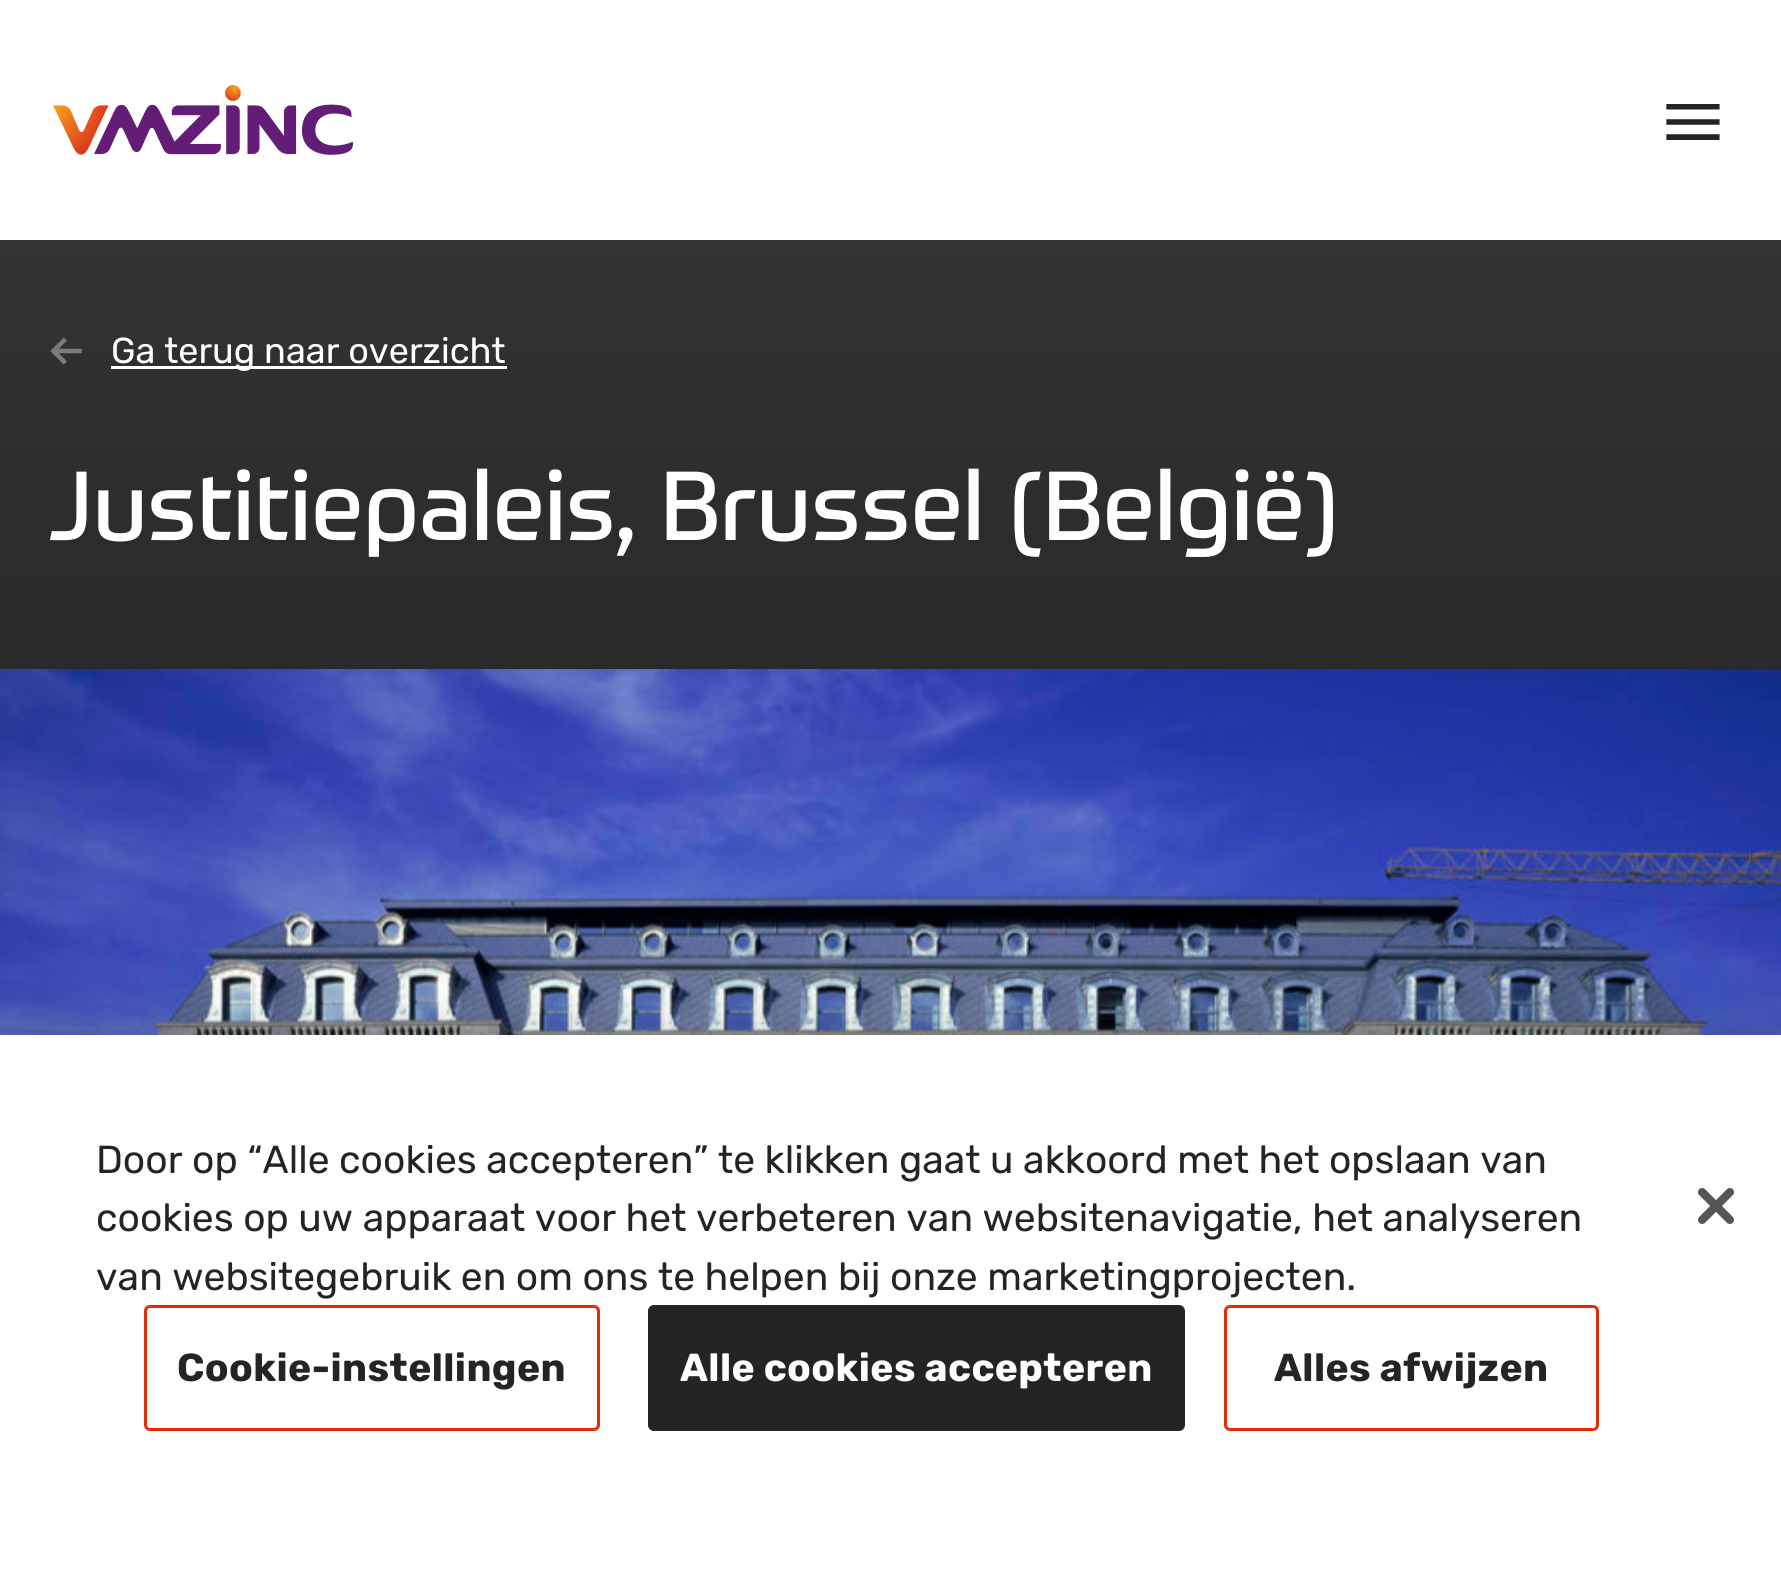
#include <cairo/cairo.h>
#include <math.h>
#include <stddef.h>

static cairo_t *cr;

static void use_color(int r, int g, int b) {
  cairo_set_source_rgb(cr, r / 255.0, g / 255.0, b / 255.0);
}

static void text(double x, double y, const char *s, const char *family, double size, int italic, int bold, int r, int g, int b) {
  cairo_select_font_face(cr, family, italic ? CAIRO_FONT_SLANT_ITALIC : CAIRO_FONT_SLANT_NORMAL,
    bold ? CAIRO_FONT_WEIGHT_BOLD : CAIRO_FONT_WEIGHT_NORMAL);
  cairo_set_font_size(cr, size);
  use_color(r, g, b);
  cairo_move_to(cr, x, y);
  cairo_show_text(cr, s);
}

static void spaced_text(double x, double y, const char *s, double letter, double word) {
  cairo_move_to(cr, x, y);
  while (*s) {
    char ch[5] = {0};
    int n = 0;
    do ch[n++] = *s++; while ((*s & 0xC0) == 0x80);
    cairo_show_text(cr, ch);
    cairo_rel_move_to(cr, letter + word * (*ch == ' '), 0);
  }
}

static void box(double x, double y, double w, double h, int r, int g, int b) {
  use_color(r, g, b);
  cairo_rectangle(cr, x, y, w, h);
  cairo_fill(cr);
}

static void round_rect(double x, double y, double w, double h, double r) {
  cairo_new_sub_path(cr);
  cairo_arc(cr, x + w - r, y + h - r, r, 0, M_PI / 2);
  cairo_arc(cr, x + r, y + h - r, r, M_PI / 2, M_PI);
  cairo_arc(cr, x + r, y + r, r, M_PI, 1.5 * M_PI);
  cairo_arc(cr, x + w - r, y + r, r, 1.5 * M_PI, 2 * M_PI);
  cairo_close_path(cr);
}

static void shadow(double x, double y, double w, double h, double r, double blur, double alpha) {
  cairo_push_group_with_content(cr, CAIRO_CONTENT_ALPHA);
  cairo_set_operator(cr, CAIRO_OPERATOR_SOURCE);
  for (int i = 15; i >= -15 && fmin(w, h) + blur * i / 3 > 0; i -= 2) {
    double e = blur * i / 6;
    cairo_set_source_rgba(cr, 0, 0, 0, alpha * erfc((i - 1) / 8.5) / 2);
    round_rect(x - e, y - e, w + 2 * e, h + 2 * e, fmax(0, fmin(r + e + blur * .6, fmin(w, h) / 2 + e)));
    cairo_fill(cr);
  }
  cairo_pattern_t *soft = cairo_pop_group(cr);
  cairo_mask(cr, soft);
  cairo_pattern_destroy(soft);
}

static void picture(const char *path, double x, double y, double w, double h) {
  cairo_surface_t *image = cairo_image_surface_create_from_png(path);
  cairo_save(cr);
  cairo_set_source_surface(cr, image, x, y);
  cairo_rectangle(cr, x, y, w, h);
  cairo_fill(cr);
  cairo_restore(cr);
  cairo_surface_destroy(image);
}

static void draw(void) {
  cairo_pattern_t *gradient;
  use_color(255, 255, 255);
  cairo_paint(cr);
  picture("img_01.png", 53, 85, 300, 70);
  picture("img_02.png", 1666, 104, 54, 36);
  gradient = cairo_pattern_create_linear(891, 240, 891, 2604);
  cairo_pattern_add_color_stop_rgba(gradient, 0, 0.2, 0.2, 0.2, 1);
  cairo_pattern_add_color_stop_rgba(gradient, 0.97, 0, 0, 0, 1);
  cairo_set_source(cr, gradient);
  cairo_pattern_destroy(gradient);
  cairo_rectangle(cr, 0, 240, 1781, 429);
  cairo_fill(cr);
  picture("img_03.png", 50, 337, 32, 28);
  box(111, 366, 396, 3, 255, 255, 255);
  picture("img_04.png", 0, 669, 1781, 366);
  use_color(0, 0, 0);
  shadow(0, 1035, 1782, 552, 0, 27, 0.2);
  box(0, 1035, 1781, 551, 255, 255, 255);
  round_rect(145.5, 1306.5, 453, 123, 4.5);
  use_color(226, 44, 1);
  cairo_set_line_width(cr, 3);
  cairo_stroke(cr);
  use_color(36, 36, 36);
  round_rect(649.5, 1306.5, 534, 123, 4.5);
  cairo_fill_preserve(cr);
  cairo_stroke(cr);
  round_rect(1225.5, 1306.5, 372, 123, 4.5);
  use_color(226, 44, 1);
  cairo_stroke(cr);
  picture("img_05.png", 1698, 1188, 36, 36);
  text(111, 363, "Ga terug naar overzicht", "Rubik", 36, 0, 0, 255, 255, 255);
  text(48, 540, "Justitiepaleis, Brussel (België)", "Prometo", 96, 0, 0, 255, 255, 255);
  text(96, 1173, "Door op “Alle cookies accepteren” te klikken gaat u akkoord met het opslaan van", "Rubik", 39, 0, 0, 36, 36, 36);
  text(96, 1231, "cookies op uw apparaat voor het verbeteren van websitenavigatie, het analyseren", "Rubik", 39, 0, 0, 36, 36, 36);
  text(96, 1290, "van websitegebruik en om ons te helpen bij onze marketingprojecten.", "Rubik", 39, 0, 0, 36, 36, 36);
  cairo_select_font_face(cr, "Rubik", CAIRO_FONT_SLANT_NORMAL, CAIRO_FONT_WEIGHT_BOLD);
  spaced_text(177, 1381, "Cookie-instellingen", 0.4, 0);
  use_color(255, 255, 255);
  spaced_text(680, 1381, "Alle cookies accepteren", 0.4, 0);
  use_color(36, 36, 36);
  spaced_text(1274, 1381, "Alles afwijzen", 0.4, 0);
}

int main(void) {
  cairo_surface_t *surface = cairo_image_surface_create(CAIRO_FORMAT_RGB24, 1781, 1586);
  cr = cairo_create(surface);
  cairo_font_options_t *options = cairo_font_options_create();
  cairo_font_options_set_hint_metrics(options, CAIRO_HINT_METRICS_OFF);
  cairo_font_options_set_hint_style(options, CAIRO_HINT_STYLE_NONE);
  cairo_set_font_options(cr, options);
  cairo_set_miter_limit(cr, 4);
  draw();
  cairo_surface_write_to_png(surface, "out.png");
  cairo_font_options_destroy(options);
  cairo_destroy(cr);
  cairo_surface_destroy(surface);
  return 0;
}
